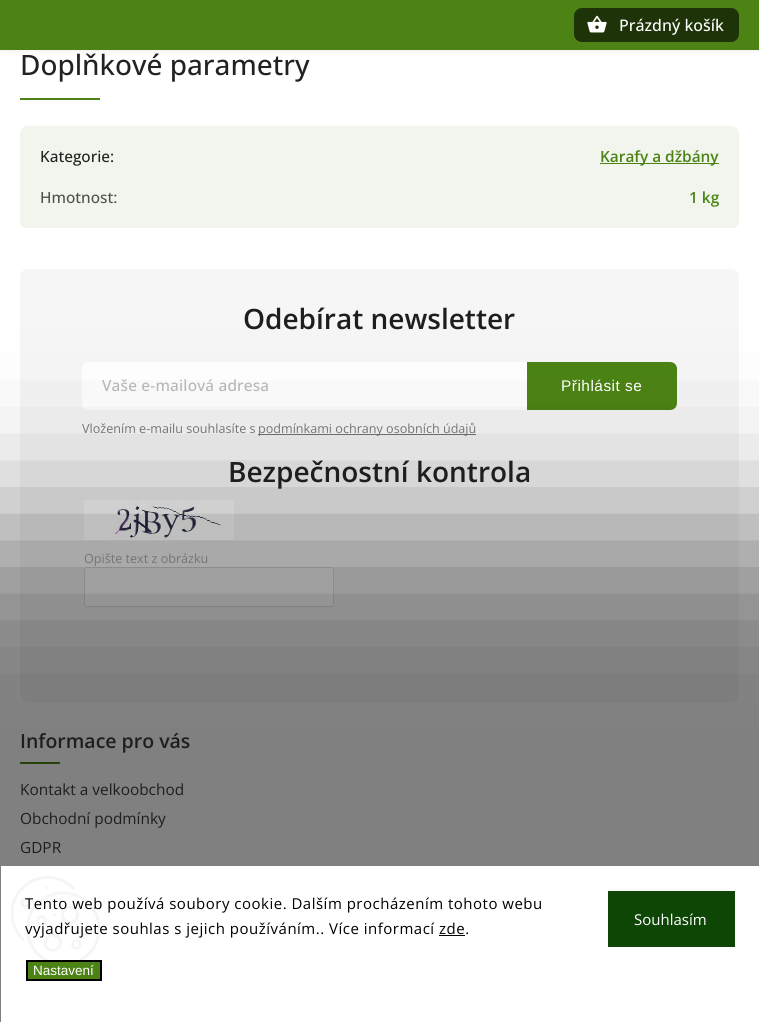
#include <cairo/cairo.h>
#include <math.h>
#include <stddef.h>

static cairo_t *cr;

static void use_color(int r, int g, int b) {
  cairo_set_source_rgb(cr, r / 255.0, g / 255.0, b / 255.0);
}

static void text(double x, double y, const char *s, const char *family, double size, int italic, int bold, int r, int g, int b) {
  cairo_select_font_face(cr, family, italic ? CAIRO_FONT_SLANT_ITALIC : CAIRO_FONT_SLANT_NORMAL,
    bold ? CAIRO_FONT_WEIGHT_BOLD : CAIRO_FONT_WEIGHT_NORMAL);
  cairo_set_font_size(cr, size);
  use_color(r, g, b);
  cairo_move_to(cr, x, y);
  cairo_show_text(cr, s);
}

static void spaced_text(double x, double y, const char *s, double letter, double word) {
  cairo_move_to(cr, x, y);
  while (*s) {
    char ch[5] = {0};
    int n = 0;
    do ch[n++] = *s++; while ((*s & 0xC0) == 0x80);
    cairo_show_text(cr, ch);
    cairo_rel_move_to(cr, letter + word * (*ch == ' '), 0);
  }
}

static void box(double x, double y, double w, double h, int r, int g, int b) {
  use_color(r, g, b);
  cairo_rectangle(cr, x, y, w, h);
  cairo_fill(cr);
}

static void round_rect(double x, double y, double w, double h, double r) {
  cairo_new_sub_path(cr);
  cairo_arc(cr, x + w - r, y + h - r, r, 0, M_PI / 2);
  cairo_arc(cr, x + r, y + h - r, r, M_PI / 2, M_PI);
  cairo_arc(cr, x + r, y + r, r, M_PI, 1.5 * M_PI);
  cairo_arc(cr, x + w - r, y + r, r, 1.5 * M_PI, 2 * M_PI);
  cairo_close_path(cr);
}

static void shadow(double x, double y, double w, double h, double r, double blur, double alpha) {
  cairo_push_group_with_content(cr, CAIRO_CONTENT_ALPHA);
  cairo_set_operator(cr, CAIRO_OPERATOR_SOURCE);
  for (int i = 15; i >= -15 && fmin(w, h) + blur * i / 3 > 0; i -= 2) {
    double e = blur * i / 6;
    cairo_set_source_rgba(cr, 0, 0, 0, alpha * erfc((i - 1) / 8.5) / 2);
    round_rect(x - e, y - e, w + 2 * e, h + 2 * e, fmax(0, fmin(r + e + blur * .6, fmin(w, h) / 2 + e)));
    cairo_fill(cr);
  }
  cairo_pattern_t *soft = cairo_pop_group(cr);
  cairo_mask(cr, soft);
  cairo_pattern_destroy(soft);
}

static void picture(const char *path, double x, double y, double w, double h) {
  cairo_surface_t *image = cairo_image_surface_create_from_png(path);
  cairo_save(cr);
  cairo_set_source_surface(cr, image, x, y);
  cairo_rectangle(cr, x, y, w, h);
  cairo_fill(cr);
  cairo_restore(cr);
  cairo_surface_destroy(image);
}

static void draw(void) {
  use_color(255, 255, 255);
  cairo_paint(cr);
  use_color(0, 0, 0);
  shadow(0, 0, 759, 50, 0, 2.5, 0.1);
  box(0, 0, 759, 50, 76, 131, 20);
  use_color(30, 52, 8);
  round_rect(574, 8, 165, 34, 8);
  cairo_fill(cr);
  picture("img_01.png", 587, 15, 20, 18);
  box(20, 98, 80, 2, 76, 131, 20);
  round_rect(20, 126, 719, 103, 8);
  cairo_fill(cr);
  cairo_set_source_rgba(cr, 1, 1, 1, 0.92);
  cairo_rectangle(cr, 20, 126, 719, 51);
  cairo_fill(cr);
  box(600, 163, 119, 1, 76, 131, 20);
  cairo_set_source_rgba(cr, 1, 1, 1, 0.92);
  cairo_rectangle(cr, 20, 177, 719, 51);
  cairo_fill(cr);
  box(20, 228, 719, 1, 255, 255, 255);
  use_color(246, 246, 246);
  round_rect(20, 269, 719, 433, 8);
  cairo_fill(cr);
  use_color(255, 255, 255);
  cairo_new_path(cr);
  cairo_move_to(cr, 89, 362);
  cairo_line_to(cr, 528, 362);
  cairo_line_to(cr, 528, 410);
  cairo_line_to(cr, 89, 410);
  cairo_curve_to(cr, 85, 410, 82, 407, 82, 403);
  cairo_line_to(cr, 82, 369);
  cairo_curve_to(cr, 82, 365, 85, 362, 89, 362);
  cairo_close_path(cr);
  cairo_fill(cr);
  use_color(76, 131, 20);
  cairo_new_path(cr);
  cairo_move_to(cr, 527, 362);
  cairo_line_to(cr, 670, 362);
  cairo_curve_to(cr, 674, 362, 677, 365, 677, 369);
  cairo_line_to(cr, 677, 403);
  cairo_curve_to(cr, 677, 407, 674, 410, 670, 410);
  cairo_line_to(cr, 527, 410);
  cairo_close_path(cr);
  cairo_fill(cr);
  box(258, 434, 218, 1, 116, 116, 115);
  picture("img_02.png", 84, 500, 150, 40);
  use_color(255, 255, 255);
  round_rect(84.5, 567.5, 249, 39, 2.5);
  cairo_fill_preserve(cr);
  use_color(223, 223, 223);
  cairo_set_line_width(cr, 1);
  cairo_stroke(cr);
  box(20, 762, 40, 2, 76, 131, 20);
  use_color(0, 0, 0);
  shadow(-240, 527, 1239, 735, 0, 80, 0.5);
  box(1, 866, 758, 156, 255, 255, 255);
  picture("img_03.png", 11, 876, 89, 84);
  box(439, 935, 26, 1, 0, 0, 0);
  use_color(76, 131, 20);
  cairo_rectangle(cr, 27, 961, 74, 19);
  cairo_fill_preserve(cr);
  use_color(0, 0, 0);
  cairo_set_line_width(cr, 2);
  cairo_stroke(cr);
  box(608, 891, 127, 56, 14, 70, 6);
  text(619, 31, "Prázdný košík", "Open Sans Medium", 16, 0, 0, 255, 255, 255);
  text(20, 75, "Doplňkové parametry", "Open Sans Medium", 28, 0, 0, 34, 34, 34);
  text(40, 162, "Kategorie:", "Open Sans Medium", 15.4, 0, 0, 34, 34, 34);
  text(600, 162, "Karafy a džbány", "Open Sans SemiBold", 15.4, 0, 0, 76, 131, 20);
  text(40, 203, "Hmotnost:", "Open Sans Medium", 15.4, 0, 0, 80, 80, 80);
  text(689, 203, "1 kg", "Open Sans SemiBold", 15.4, 0, 0, 76, 131, 20);
  text(243, 329, "Odebírat newsletter", "Open Sans SemiBold", 28, 0, 0, 30, 30, 28);
  cairo_select_font_face(cr, "Open Sans Medium", CAIRO_FONT_SLANT_NORMAL, CAIRO_FONT_WEIGHT_NORMAL);
  cairo_set_font_size(cr, 15.4);
  use_color(182, 182, 182);
  spaced_text(102, 391, "Vaše e-mailová adresa", 0.2, 0);
  cairo_select_font_face(cr, "Liberation Sans", CAIRO_FONT_SLANT_NORMAL, CAIRO_FONT_WEIGHT_NORMAL);
  use_color(255, 255, 255);
  spaced_text(561, 391, "Přihlásit se", 0.5, 0);
  text(82, 433, "Vložením e-mailu souhlasíte s", "Open Sans", 12.6, 0, 0, 116, 116, 115);
  text(258, 433, "podmínkami ochrany osobních údajů", "Open Sans", 12.6, 0, 0, 116, 116, 115);
  text(228, 482, "Bezpečnostní kontrola", "Open Sans SemiBold", 28, 0, 0, 30, 30, 28);
  text(84, 563, "Opište text z obrázku", "Open Sans", 12.6, 0, 0, 116, 116, 115);
  text(20, 748, "Informace pro vás", "Open Sans SemiBold", 19.5, 0, 0, 30, 30, 28);
  text(20, 795, "Kontakt a velkoobchod", "Open Sans", 15.4, 0, 0, 30, 30, 28);
  text(20, 824, "Obchodní podmínky", "Open Sans", 15.4, 0, 0, 30, 30, 28);
  text(20, 853, "GDPR", "Open Sans", 15.4, 0, 0, 30, 30, 28);
  cairo_set_font_size(cr, 15);
  use_color(0, 0, 0);
  spaced_text(25, 909, "Tento web používá soubory cookie. Dalším procházením tohoto webu", 0.5, 0);
  spaced_text(25, 934, "vyjadřujete souhlas s jejich používáním.. Více informací zde.", 0.5, 0);
  text(33, 975, "Nastavení", "Liberation Sans", 13.5, 0, 0, 255, 255, 255);
  text(634, 925, "Souhlasím", "Open Sans", 15, 0, 0, 255, 255, 255);
}

int main(void) {
  cairo_surface_t *surface = cairo_image_surface_create(CAIRO_FORMAT_RGB24, 759, 1022);
  cr = cairo_create(surface);
  cairo_font_options_t *options = cairo_font_options_create();
  cairo_font_options_set_hint_metrics(options, CAIRO_HINT_METRICS_OFF);
  cairo_font_options_set_hint_style(options, CAIRO_HINT_STYLE_NONE);
  cairo_set_font_options(cr, options);
  cairo_set_miter_limit(cr, 4);
  draw();
  cairo_surface_write_to_png(surface, "out.png");
  cairo_font_options_destroy(options);
  cairo_destroy(cr);
  cairo_surface_destroy(surface);
  return 0;
}
